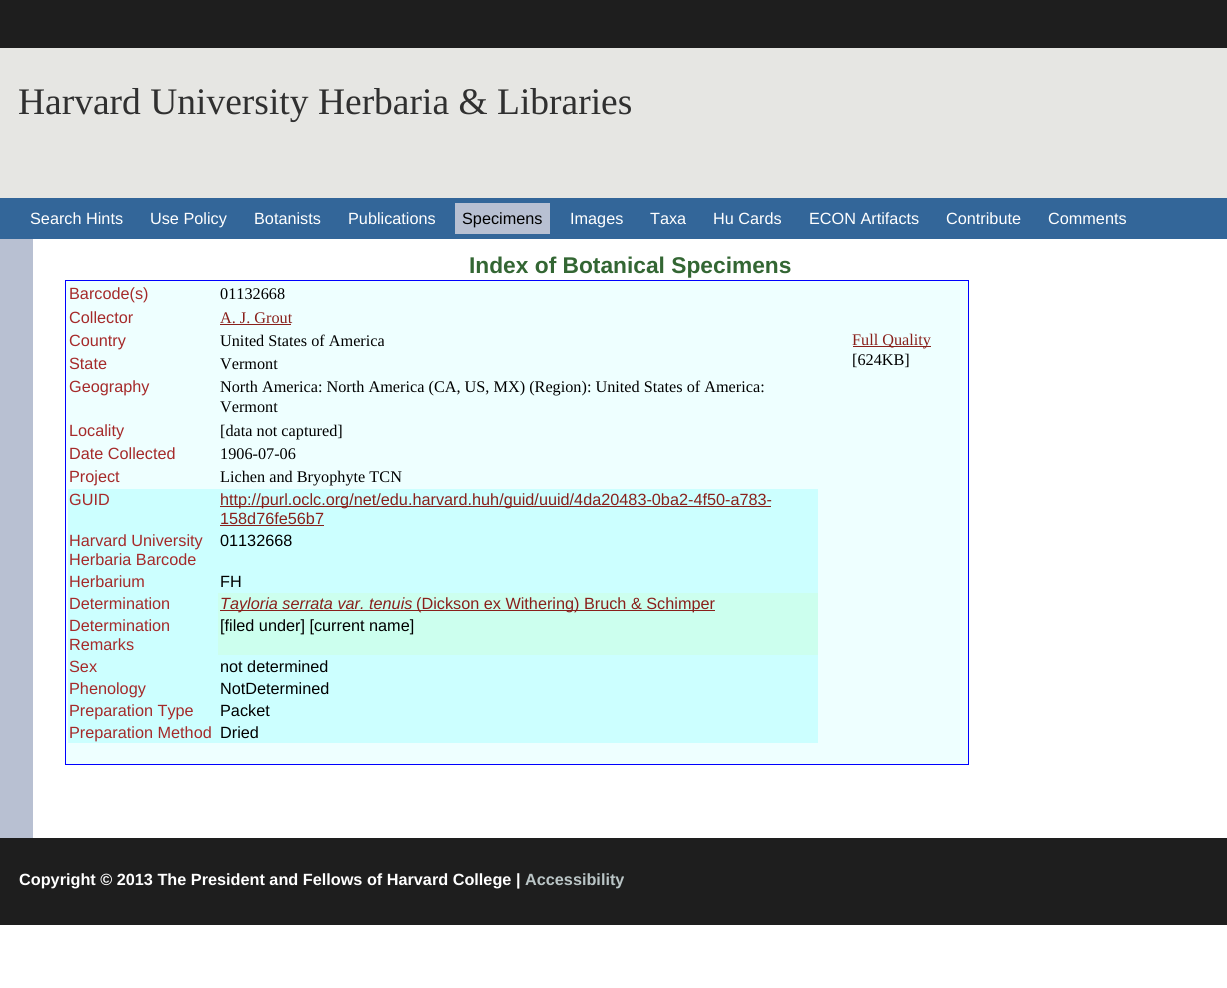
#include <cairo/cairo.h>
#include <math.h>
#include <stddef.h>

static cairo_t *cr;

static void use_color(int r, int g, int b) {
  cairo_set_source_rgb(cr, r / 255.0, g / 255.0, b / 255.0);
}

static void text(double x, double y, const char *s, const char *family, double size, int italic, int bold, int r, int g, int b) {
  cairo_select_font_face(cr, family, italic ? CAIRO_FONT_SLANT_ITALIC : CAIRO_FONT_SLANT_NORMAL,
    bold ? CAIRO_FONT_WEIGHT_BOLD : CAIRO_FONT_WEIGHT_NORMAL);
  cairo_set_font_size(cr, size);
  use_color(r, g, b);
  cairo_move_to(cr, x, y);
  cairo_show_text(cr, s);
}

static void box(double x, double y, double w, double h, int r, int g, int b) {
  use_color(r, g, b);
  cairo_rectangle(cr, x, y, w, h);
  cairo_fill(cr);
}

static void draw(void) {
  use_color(255, 255, 255);
  cairo_paint(cr);
  box(0, 0, 1227, 48, 30, 30, 30);
  box(0, 48, 1227, 150, 230, 230, 227);
  box(0, 198, 1227, 41, 51, 102, 153);
  box(455, 203, 95, 31, 184, 192, 210);
  box(0, 239, 33, 599, 184, 192, 210);
  box(66, 281, 902, 483, 238, 255, 255);
  box(65, 280, 904, 1, 0, 0, 255);
  box(968, 280, 1, 485, 0, 0, 255);
  box(65, 764, 904, 1, 0, 0, 255);
  box(65, 280, 1, 485, 0, 0, 255);
  box(220, 324, 71, 1, 137, 32, 27);
  box(68, 489, 750, 104, 204, 255, 255);
  box(220, 506, 551, 1, 137, 32, 27);
  box(220, 525, 104, 1, 137, 32, 27);
  box(68, 593, 150, 62, 204, 255, 255);
  box(218, 593, 600, 62, 204, 255, 238);
  box(220, 610, 495, 1, 137, 32, 27);
  box(68, 655, 750, 88, 204, 255, 255);
  box(853, 346, 78, 1, 137, 32, 27);
  box(0, 838, 1227, 87, 30, 30, 30);
  text(18, 114, "Harvard University Herbaria & Libraries", "Liberation Serif", 37.5, 0, 0, 48, 48, 48);
  text(30, 224, "Search Hints", "Liberation Sans", 16.25, 0, 0, 255, 255, 255);
  text(150, 224, "Use Policy", "Liberation Sans", 16.25, 0, 0, 255, 255, 255);
  text(254, 224, "Botanists", "Liberation Sans", 16.25, 0, 0, 255, 255, 255);
  text(348, 224, "Publications", "Liberation Sans", 16.25, 0, 0, 255, 255, 255);
  text(462, 224, "Specimens", "Liberation Sans", 16.25, 0, 0, 0, 0, 0);
  text(570, 224, "Images", "Liberation Sans", 16.25, 0, 0, 255, 255, 255);
  text(650, 224, "Taxa", "Liberation Sans", 16.25, 0, 0, 255, 255, 255);
  text(713, 224, "Hu Cards", "Liberation Sans", 16.25, 0, 0, 255, 255, 255);
  text(809, 224, "ECON Artifacts", "Liberation Sans", 16.25, 0, 0, 255, 255, 255);
  text(946, 224, "Contribute", "Liberation Sans", 16.25, 0, 0, 255, 255, 255);
  text(1048, 224, "Comments", "Liberation Sans", 16.25, 0, 0, 255, 255, 255);
  text(469, 273, "Index of Botanical Specimens", "Liberation Sans", 22.75, 0, 1, 51, 102, 51);
  text(69, 299, "Barcode(s)", "Liberation Sans", 16.25, 0, 0, 165, 42, 42);
  text(220, 299, "01132668", "Liberation Serif", 16.25, 0, 0, 0, 0, 0);
  text(69, 323, "Collector", "Liberation Sans", 16.25, 0, 0, 165, 42, 42);
  text(220, 323, "A. J. Grout", "Liberation Serif", 16.25, 0, 0, 137, 32, 27);
  text(69, 346, "Country", "Liberation Sans", 16.25, 0, 0, 165, 42, 42);
  text(220, 346, "United States of America", "Liberation Serif", 16.25, 0, 0, 0, 0, 0);
  text(69, 369, "State", "Liberation Sans", 16.25, 0, 0, 165, 42, 42);
  text(220, 369, "Vermont", "Liberation Serif", 16.25, 0, 0, 0, 0, 0);
  text(69, 392, "Geography", "Liberation Sans", 16.25, 0, 0, 165, 42, 42);
  text(220, 392, "North America: North America (CA, US, MX) (Region): United States of America:", "Liberation Serif", 16.25, 0, 0, 0, 0, 0);
  text(220, 412, "Vermont", "Liberation Serif", 16.25, 0, 0, 0, 0, 0);
  text(69, 436, "Locality", "Liberation Sans", 16.25, 0, 0, 165, 42, 42);
  text(220, 436, "[data not captured]", "Liberation Serif", 16.25, 0, 0, 0, 0, 0);
  text(69, 459, "Date Collected", "Liberation Sans", 16.25, 0, 0, 165, 42, 42);
  text(220, 459, "1906-07-06", "Liberation Serif", 16.25, 0, 0, 0, 0, 0);
  text(69, 482, "Project", "Liberation Sans", 16.25, 0, 0, 165, 42, 42);
  text(220, 482, "Lichen and Bryophyte TCN", "Liberation Serif", 16.25, 0, 0, 0, 0, 0);
  text(69, 505, "GUID", "Liberation Sans", 16.25, 0, 0, 165, 42, 42);
  text(220, 505, "http://purl.oclc.org/net/edu.harvard.huh/guid/uuid/4da20483-0ba2-4f50-a783-", "Liberation Sans", 16.25, 0, 0, 137, 32, 27);
  text(220, 524, "158d76fe56b7", "Liberation Sans", 16.25, 0, 0, 137, 32, 27);
  text(69, 546, "Harvard University", "Liberation Sans", 16.25, 0, 0, 165, 42, 42);
  text(69, 565, "Herbaria Barcode", "Liberation Sans", 16.25, 0, 0, 165, 42, 42);
  text(220, 546, "01132668", "Liberation Sans", 16.25, 0, 0, 0, 0, 0);
  text(69, 587, "Herbarium", "Liberation Sans", 16.25, 0, 0, 165, 42, 42);
  text(220, 587, "FH", "Liberation Sans", 16.25, 0, 0, 0, 0, 0);
  text(69, 609, "Determination", "Liberation Sans", 16.25, 0, 0, 165, 42, 42);
  text(220, 609, "Tayloria serrata var. tenuis", "Liberation Sans", 16.25, 1, 0, 137, 32, 27);
  text(416, 609, "(Dickson ex Withering) Bruch & Schimper", "Liberation Sans", 16.25, 0, 0, 137, 32, 27);
  text(69, 631, "Determination", "Liberation Sans", 16.25, 0, 0, 165, 42, 42);
  text(69, 650, "Remarks", "Liberation Sans", 16.25, 0, 0, 165, 42, 42);
  text(220, 631, "[filed under] [current name]", "Liberation Sans", 16.25, 0, 0, 0, 0, 0);
  text(69, 672, "Sex", "Liberation Sans", 16.25, 0, 0, 165, 42, 42);
  text(220, 672, "not determined", "Liberation Sans", 16.25, 0, 0, 0, 0, 0);
  text(69, 694, "Phenology", "Liberation Sans", 16.25, 0, 0, 165, 42, 42);
  text(220, 694, "NotDetermined", "Liberation Sans", 16.25, 0, 0, 0, 0, 0);
  text(69, 716, "Preparation Type", "Liberation Sans", 16.25, 0, 0, 165, 42, 42);
  text(220, 716, "Packet", "Liberation Sans", 16.25, 0, 0, 0, 0, 0);
  text(69, 738, "Preparation Method", "Liberation Sans", 16.25, 0, 0, 165, 42, 42);
  text(220, 738, "Dried", "Liberation Sans", 16.25, 0, 0, 0, 0, 0);
  text(852, 345, "Full Quality", "Liberation Serif", 16.25, 0, 0, 137, 32, 27);
  text(852, 365, "[624KB]", "Liberation Serif", 16.25, 0, 0, 0, 0, 0);
  text(19, 885, "Copyright © 2013 The President and Fellows of Harvard College |", "Liberation Sans", 16.25, 0, 1, 255, 255, 255);
  text(525, 885, "Accessibility", "Liberation Sans", 16.25, 0, 1, 186, 197, 198);
}

int main(void) {
  cairo_surface_t *surface = cairo_image_surface_create(CAIRO_FORMAT_RGB24, 1227, 988);
  cr = cairo_create(surface);
  cairo_font_options_t *options = cairo_font_options_create();
  cairo_font_options_set_hint_metrics(options, CAIRO_HINT_METRICS_OFF);
  cairo_font_options_set_hint_style(options, CAIRO_HINT_STYLE_NONE);
  cairo_set_font_options(cr, options);
  cairo_set_miter_limit(cr, 4);
  draw();
  cairo_surface_write_to_png(surface, "out.png");
  cairo_font_options_destroy(options);
  cairo_destroy(cr);
  cairo_surface_destroy(surface);
  return 0;
}
